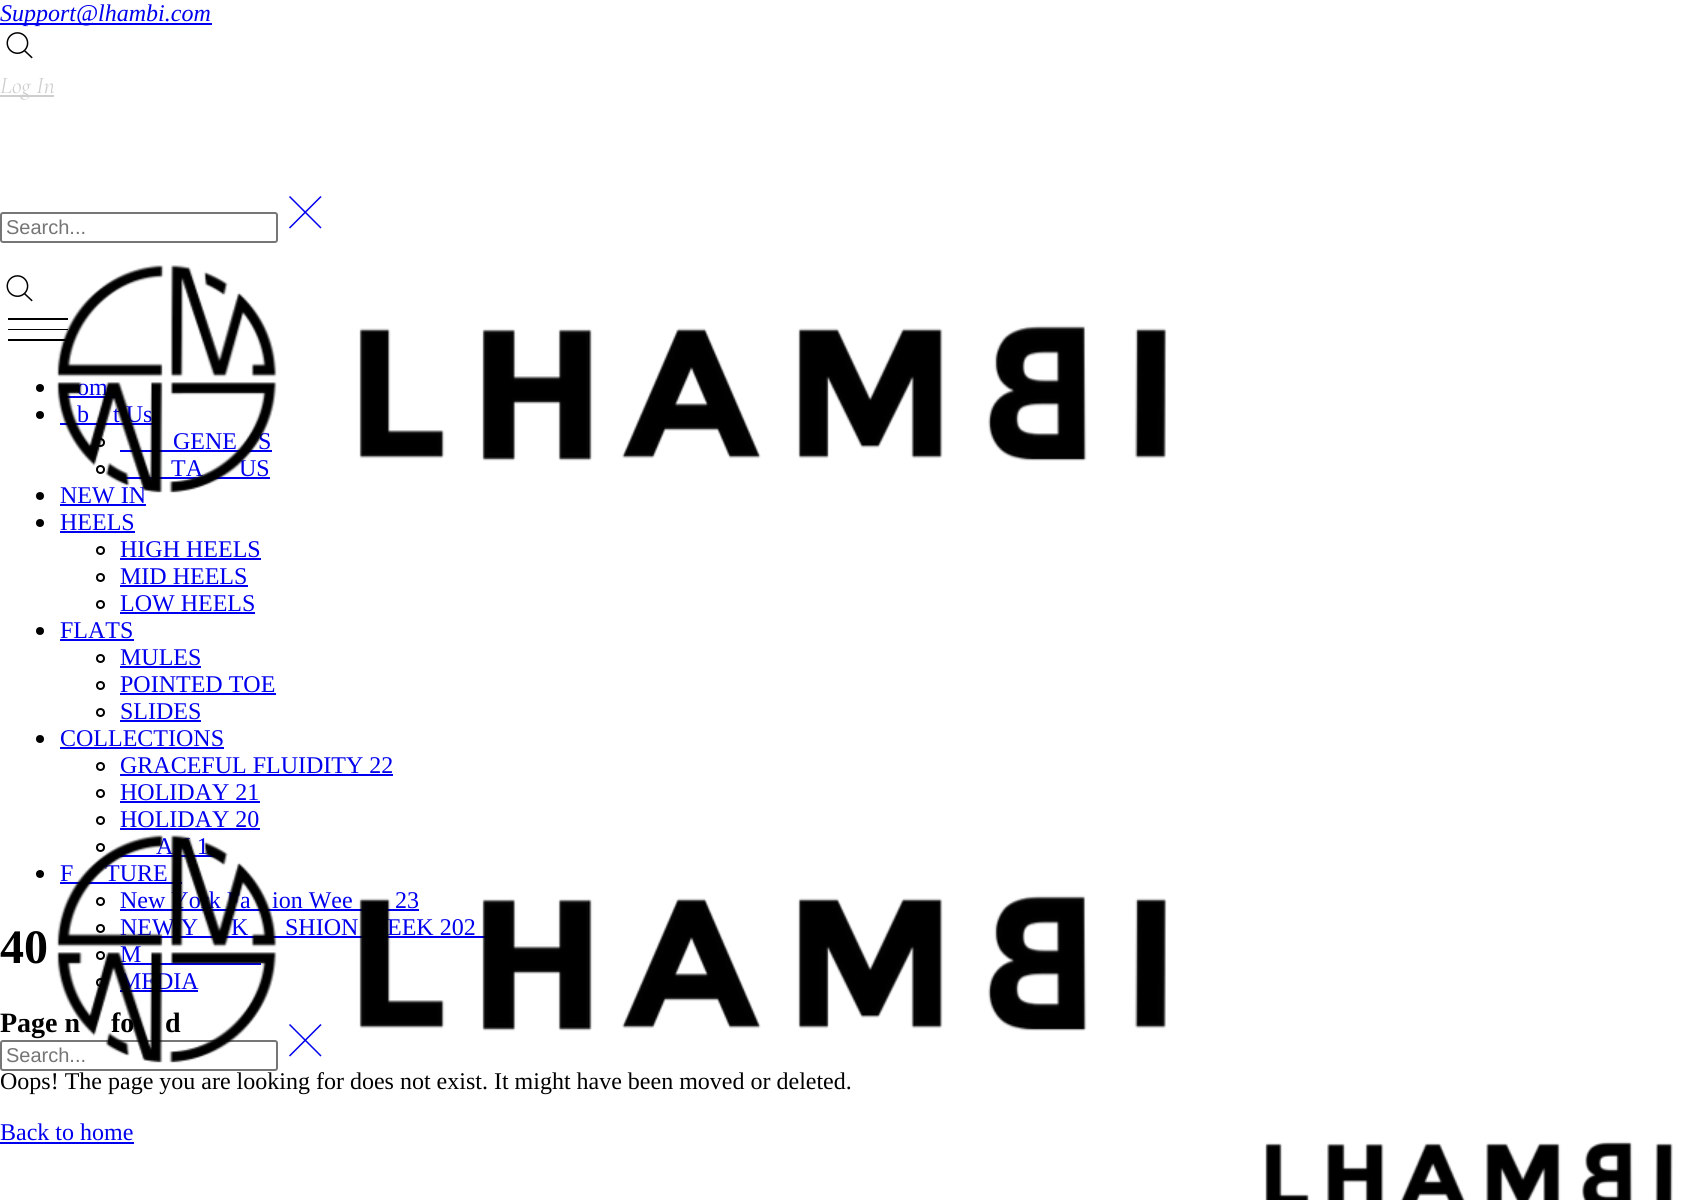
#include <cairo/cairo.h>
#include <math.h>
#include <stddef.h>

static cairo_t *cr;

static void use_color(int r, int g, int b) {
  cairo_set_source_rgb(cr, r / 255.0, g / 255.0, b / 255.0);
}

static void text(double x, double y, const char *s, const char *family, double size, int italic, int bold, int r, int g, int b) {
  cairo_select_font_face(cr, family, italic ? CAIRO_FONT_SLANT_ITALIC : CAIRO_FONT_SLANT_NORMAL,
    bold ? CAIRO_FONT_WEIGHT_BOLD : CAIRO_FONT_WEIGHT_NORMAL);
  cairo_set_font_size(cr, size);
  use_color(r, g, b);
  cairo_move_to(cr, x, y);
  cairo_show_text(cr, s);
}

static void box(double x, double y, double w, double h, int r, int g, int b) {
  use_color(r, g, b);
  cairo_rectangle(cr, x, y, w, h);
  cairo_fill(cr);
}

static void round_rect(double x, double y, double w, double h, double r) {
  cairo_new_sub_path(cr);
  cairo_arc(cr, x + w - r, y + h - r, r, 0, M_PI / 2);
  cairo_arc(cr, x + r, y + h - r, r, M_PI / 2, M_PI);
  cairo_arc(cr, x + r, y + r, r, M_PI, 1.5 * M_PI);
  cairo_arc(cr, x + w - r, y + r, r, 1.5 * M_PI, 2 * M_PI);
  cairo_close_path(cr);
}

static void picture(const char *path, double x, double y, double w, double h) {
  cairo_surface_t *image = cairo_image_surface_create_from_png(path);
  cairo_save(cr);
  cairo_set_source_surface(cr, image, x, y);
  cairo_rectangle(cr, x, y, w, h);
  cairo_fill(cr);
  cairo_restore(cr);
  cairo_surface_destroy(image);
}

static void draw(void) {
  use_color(255, 255, 255);
  cairo_paint(cr);
  box(0, 23, 212, 2, 0, 0, 238);
  picture("img_01.png", 6, 32, 27, 27);
  box(0, 95, 54, 2, 206, 206, 206);
  round_rect(1, 213, 276, 29, 2);
  use_color(118, 118, 118);
  cairo_stroke(cr);
  cairo_new_path(cr);
  cairo_move_to(cr, 289.5, 196.5);
  cairo_line_to(cr, 321, 228);
  cairo_move_to(cr, 289.5, 196.5);
  cairo_line_to(cr, 321, 228);
  cairo_move_to(cr, 289.5, 228);
  cairo_line_to(cr, 321, 196.5);
  cairo_move_to(cr, 289.5, 228);
  cairo_line_to(cr, 321, 196.5);
  use_color(0, 0, 238);
  cairo_set_line_width(cr, 1.5);
  cairo_stroke(cr);
  picture("img_04.png", 1265, 1141, 408, 59);
  picture("img_01.png", 6, 275, 27, 27);
  box(8, 318, 60, 2, 0, 0, 0);
  box(8, 329, 60, 1, 0, 0, 0);
  box(8, 339, 60, 2, 0, 0, 0);
  cairo_arc(cr, 40, 388, 4, 0, 2 * M_PI);
  cairo_fill(cr);
  box(60, 396, 59, 2, 0, 0, 238);
  use_color(0, 0, 0);
  cairo_arc(cr, 40, 415, 4, 0, 2 * M_PI);
  cairo_fill(cr);
  box(60, 423, 93, 2, 0, 0, 238);
  cairo_arc(cr, 100.5, 442.5, 3.5, 0, 2 * M_PI);
  use_color(0, 0, 0);
  cairo_set_line_width(cr, 2);
  cairo_stroke(cr);
  box(120, 450, 152, 2, 0, 0, 238);
  cairo_arc(cr, 100.5, 469.5, 3.5, 0, 2 * M_PI);
  use_color(0, 0, 0);
  cairo_stroke(cr);
  box(120, 477, 150, 2, 0, 0, 238);
  use_color(0, 0, 0);
  cairo_arc(cr, 40, 496, 4, 0, 2 * M_PI);
  cairo_fill(cr);
  box(60, 504, 86, 2, 0, 0, 238);
  use_color(0, 0, 0);
  cairo_arc(cr, 40, 523, 4, 0, 2 * M_PI);
  cairo_fill(cr);
  box(60, 531, 75, 2, 0, 0, 238);
  cairo_arc(cr, 100.5, 550.5, 3.5, 0, 2 * M_PI);
  use_color(0, 0, 0);
  cairo_stroke(cr);
  box(120, 558, 141, 2, 0, 0, 238);
  cairo_arc(cr, 100.5, 577.5, 3.5, 0, 2 * M_PI);
  use_color(0, 0, 0);
  cairo_stroke(cr);
  box(120, 585, 128, 2, 0, 0, 238);
  cairo_arc(cr, 100.5, 604.5, 3.5, 0, 2 * M_PI);
  use_color(0, 0, 0);
  cairo_stroke(cr);
  box(120, 612, 135, 2, 0, 0, 238);
  use_color(0, 0, 0);
  cairo_arc(cr, 40, 631, 4, 0, 2 * M_PI);
  cairo_fill(cr);
  box(60, 639, 74, 2, 0, 0, 238);
  cairo_arc(cr, 100.5, 658.5, 3.5, 0, 2 * M_PI);
  use_color(0, 0, 0);
  cairo_stroke(cr);
  box(120, 666, 81, 2, 0, 0, 238);
  cairo_arc(cr, 100.5, 685.5, 3.5, 0, 2 * M_PI);
  use_color(0, 0, 0);
  cairo_stroke(cr);
  box(120, 693, 156, 2, 0, 0, 238);
  cairo_arc(cr, 100.5, 712.5, 3.5, 0, 2 * M_PI);
  use_color(0, 0, 0);
  cairo_stroke(cr);
  box(120, 720, 81, 2, 0, 0, 238);
  use_color(0, 0, 0);
  cairo_arc(cr, 40, 739, 4, 0, 2 * M_PI);
  cairo_fill(cr);
  box(60, 747, 164, 2, 0, 0, 238);
  cairo_arc(cr, 100.5, 766.5, 3.5, 0, 2 * M_PI);
  use_color(0, 0, 0);
  cairo_stroke(cr);
  box(120, 774, 273, 2, 0, 0, 238);
  cairo_arc(cr, 100.5, 793.5, 3.5, 0, 2 * M_PI);
  use_color(0, 0, 0);
  cairo_stroke(cr);
  box(120, 801, 140, 2, 0, 0, 238);
  cairo_arc(cr, 100.5, 820.5, 3.5, 0, 2 * M_PI);
  use_color(0, 0, 0);
  cairo_stroke(cr);
  box(120, 828, 140, 2, 0, 0, 238);
  cairo_arc(cr, 100.5, 847.5, 3.5, 0, 2 * M_PI);
  use_color(0, 0, 0);
  cairo_stroke(cr);
  box(120, 855, 101, 2, 0, 0, 238);
  use_color(0, 0, 0);
  cairo_arc(cr, 40, 874, 4, 0, 2 * M_PI);
  cairo_fill(cr);
  box(60, 882, 122, 2, 0, 0, 238);
  cairo_arc(cr, 100.5, 901.5, 3.5, 0, 2 * M_PI);
  use_color(0, 0, 0);
  cairo_stroke(cr);
  box(120, 909, 299, 2, 0, 0, 238);
  cairo_arc(cr, 100.5, 928.5, 3.5, 0, 2 * M_PI);
  use_color(0, 0, 0);
  cairo_stroke(cr);
  box(120, 936, 368, 2, 0, 0, 238);
  cairo_arc(cr, 100.5, 955.5, 3.5, 0, 2 * M_PI);
  use_color(0, 0, 0);
  cairo_stroke(cr);
  box(120, 963, 141, 2, 0, 0, 238);
  cairo_arc(cr, 100.5, 982.5, 3.5, 0, 2 * M_PI);
  use_color(0, 0, 0);
  cairo_stroke(cr);
  box(120, 990, 78, 2, 0, 0, 238);
  round_rect(1, 1041, 276, 29, 2);
  use_color(118, 118, 118);
  cairo_stroke(cr);
  cairo_new_path(cr);
  cairo_move_to(cr, 289.5, 1024.5);
  cairo_line_to(cr, 321, 1056);
  cairo_move_to(cr, 289.5, 1024.5);
  cairo_line_to(cr, 321, 1056);
  cairo_move_to(cr, 289.5, 1056);
  cairo_line_to(cr, 321, 1024.5);
  cairo_move_to(cr, 289.5, 1056);
  cairo_line_to(cr, 321, 1024.5);
  use_color(0, 0, 238);
  cairo_set_line_width(cr, 1.5);
  cairo_stroke(cr);
  box(0, 1142, 134, 2, 0, 0, 238);
  text(0, 21, "Support@lhambi.com", "Liberation Serif", 24, 1, 0, 0, 0, 238);
  text(0, 93, "Log In", "Cormorant", 24, 1, 0, 206, 206, 206);
  text(6, 234, "Search...", "Liberation Sans", 20, 0, 0, 117, 117, 117);
  text(77, 395, "om", "Liberation Serif", 24, 0, 0, 0, 0, 238);
  text(77, 422, "b", "Liberation Serif", 24, 0, 0, 0, 0, 238);
  text(113, 422, "t Us", "Liberation Serif", 24, 0, 0, 0, 0, 238);
  text(173, 449, "GENE", "Liberation Serif", 24, 0, 0, 0, 0, 238);
  text(258, 449, "S", "Liberation Serif", 24, 0, 0, 0, 0, 238);
  text(171, 476, "TA", "Liberation Serif", 24, 0, 0, 0, 0, 238);
  text(239, 476, "US", "Liberation Serif", 24, 0, 0, 0, 0, 238);
  text(60, 503, "NEW IN", "Liberation Serif", 24, 0, 0, 0, 0, 238);
  picture("img_02.png", 56, 265, 1111, 228);
  text(60, 530, "HEELS", "Liberation Serif", 24, 0, 0, 0, 0, 238);
  text(120, 557, "HIGH HEELS", "Liberation Serif", 24, 0, 0, 0, 0, 238);
  text(120, 584, "MID HEELS", "Liberation Serif", 24, 0, 0, 0, 0, 238);
  text(120, 611, "LOW HEELS", "Liberation Serif", 24, 0, 0, 0, 0, 238);
  text(60, 638, "FLATS", "Liberation Serif", 24, 0, 0, 0, 0, 238);
  text(120, 665, "MULES", "Liberation Serif", 24, 0, 0, 0, 0, 238);
  text(120, 692, "POINTED TOE", "Liberation Serif", 24, 0, 0, 0, 0, 238);
  text(120, 719, "SLIDES", "Liberation Serif", 24, 0, 0, 0, 0, 238);
  text(60, 746, "COLLECTIONS", "Liberation Serif", 24, 0, 0, 0, 0, 238);
  text(120, 773, "GRACEFUL FLUIDITY 22", "Liberation Serif", 24, 0, 0, 0, 0, 238);
  text(120, 800, "HOLIDAY 21", "Liberation Serif", 24, 0, 0, 0, 0, 238);
  text(120, 827, "HOLIDAY 20", "Liberation Serif", 24, 0, 0, 0, 0, 238);
  text(156, 854, "AN 1", "Liberation Serif", 24, 0, 0, 0, 0, 238);
  text(60, 881, "F", "Liberation Serif", 24, 0, 0, 0, 0, 238);
  text(105, 881, "TURE", "Liberation Serif", 24, 0, 0, 0, 0, 238);
  text(120, 908, "New York Fa", "Liberation Serif", 24, 0, 0, 0, 0, 238);
  text(272, 908, "ion Wee", "Liberation Serif", 24, 0, 0, 0, 0, 238);
  text(395, 908, "23", "Liberation Serif", 24, 0, 0, 0, 0, 238);
  text(120, 935, "NEW Y", "Liberation Serif", 24, 0, 0, 0, 0, 238);
  text(231, 935, "K", "Liberation Serif", 24, 0, 0, 0, 0, 238);
  text(285, 935, "SHION WEEK 202", "Liberation Serif", 24, 0, 0, 0, 0, 238);
  text(120, 962, "M", "Liberation Serif", 24, 0, 0, 0, 0, 238);
  text(120, 989, "MEDIA", "Liberation Serif", 24, 0, 0, 0, 0, 238);
  text(6, 1062, "Search...", "Liberation Sans", 20, 0, 0, 117, 117, 117);
  text(0, 963, "40", "Liberation Serif", 48, 0, 1, 0, 0, 0);
  text(0, 1032, "Page n", "Liberation Serif", 28, 0, 1, 0, 0, 0);
  text(111, 1032, "fo", "Liberation Serif", 28, 0, 1, 0, 0, 0);
  text(165, 1032, "d", "Liberation Serif", 28, 0, 1, 0, 0, 0);
  picture("img_03.png", 56, 835, 1111, 228);
  text(0, 1089, "Oops! The page you are looking for does not exist. It might have been moved or deleted.", "Liberation Serif", 24, 0, 0, 0, 0, 0);
  text(0, 1140, "Back to home", "Liberation Serif", 24, 0, 0, 0, 0, 238);
}

int main(void) {
  cairo_surface_t *surface = cairo_image_surface_create(CAIRO_FORMAT_RGB24, 1681, 1200);
  cr = cairo_create(surface);
  cairo_font_options_t *options = cairo_font_options_create();
  cairo_font_options_set_hint_metrics(options, CAIRO_HINT_METRICS_OFF);
  cairo_font_options_set_hint_style(options, CAIRO_HINT_STYLE_NONE);
  cairo_set_font_options(cr, options);
  cairo_set_miter_limit(cr, 4);
  draw();
  cairo_surface_write_to_png(surface, "out.png");
  cairo_font_options_destroy(options);
  cairo_destroy(cr);
  cairo_surface_destroy(surface);
  return 0;
}
